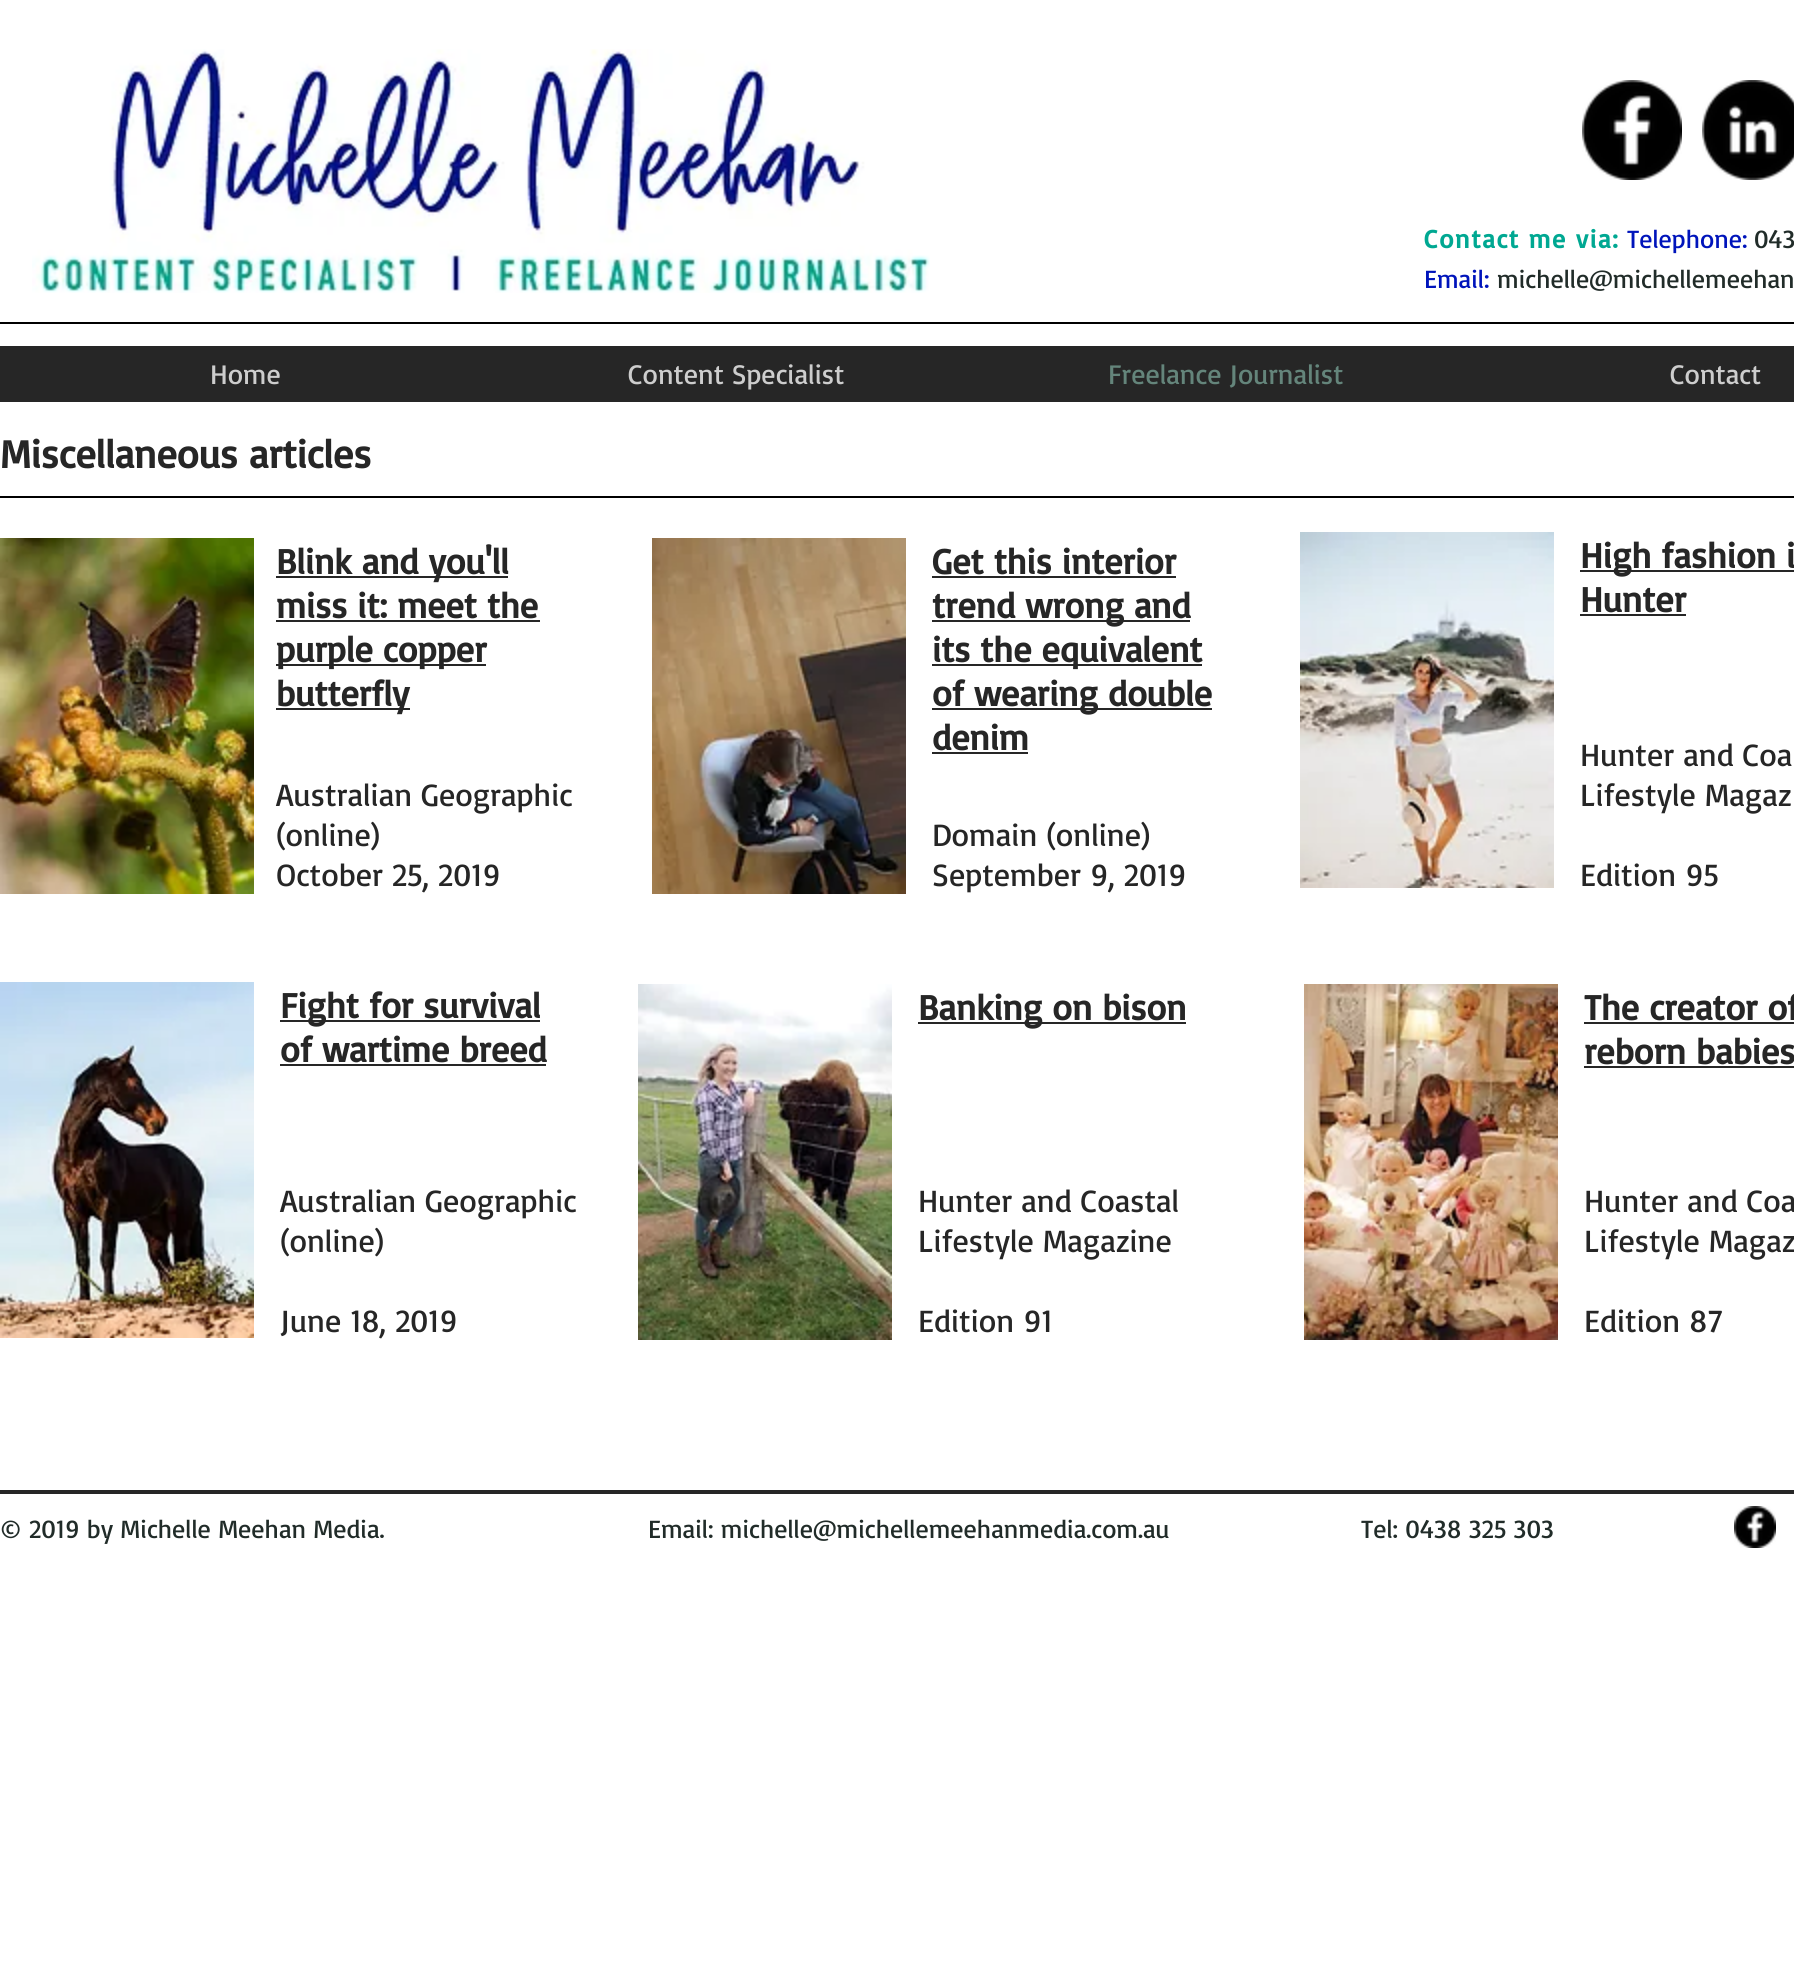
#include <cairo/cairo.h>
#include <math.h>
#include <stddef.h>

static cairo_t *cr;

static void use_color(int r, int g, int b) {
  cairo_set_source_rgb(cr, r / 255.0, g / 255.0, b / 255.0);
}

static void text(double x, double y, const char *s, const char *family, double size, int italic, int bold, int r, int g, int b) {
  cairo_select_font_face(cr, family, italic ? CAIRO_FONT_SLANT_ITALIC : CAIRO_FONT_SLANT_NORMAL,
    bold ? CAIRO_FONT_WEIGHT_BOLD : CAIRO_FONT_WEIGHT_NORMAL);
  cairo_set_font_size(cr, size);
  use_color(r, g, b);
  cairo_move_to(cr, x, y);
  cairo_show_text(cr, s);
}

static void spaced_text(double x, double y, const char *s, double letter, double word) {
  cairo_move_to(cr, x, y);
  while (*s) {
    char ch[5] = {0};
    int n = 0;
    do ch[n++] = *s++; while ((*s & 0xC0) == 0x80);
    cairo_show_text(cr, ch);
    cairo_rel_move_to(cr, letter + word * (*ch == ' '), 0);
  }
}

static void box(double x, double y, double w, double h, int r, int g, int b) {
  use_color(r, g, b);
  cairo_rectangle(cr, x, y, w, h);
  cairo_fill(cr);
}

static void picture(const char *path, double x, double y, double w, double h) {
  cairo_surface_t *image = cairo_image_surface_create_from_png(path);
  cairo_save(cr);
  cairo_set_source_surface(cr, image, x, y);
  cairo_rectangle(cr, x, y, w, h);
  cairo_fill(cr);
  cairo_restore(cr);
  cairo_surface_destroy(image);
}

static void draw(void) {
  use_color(255, 255, 255);
  cairo_paint(cr);
  picture("img_01.png", 32, 49, 898, 244);
  picture("img_02.png", 1582, 80, 100, 100);
  picture("img_03.png", 1702, 80, 92, 100);
  box(0, 322, 1794, 2, 0, 0, 0);
  box(0, 346, 1794, 56, 38, 38, 38);
  box(0, 496, 1794, 2, 0, 0, 0);
  picture("img_04.png", 0, 538, 254, 356);
  box(276, 576, 232, 2, 38, 38, 38);
  box(276, 620, 264, 2, 38, 38, 38);
  box(276, 664, 210, 2, 38, 38, 38);
  box(276, 708, 134, 2, 38, 38, 38);
  picture("img_05.png", 652, 538, 254, 356);
  box(932, 576, 244, 2, 38, 38, 38);
  box(932, 620, 258, 2, 38, 38, 38);
  box(932, 664, 270, 2, 38, 38, 38);
  box(932, 708, 280, 2, 38, 38, 38);
  box(932, 752, 96, 2, 38, 38, 38);
  picture("img_06.png", 1300, 532, 254, 356);
  box(1580, 570, 214, 2, 38, 38, 38);
  box(1580, 614, 106, 2, 38, 38, 38);
  picture("img_07.png", 0, 982, 254, 356);
  box(280, 1020, 260, 2, 38, 38, 38);
  box(280, 1064, 266, 2, 38, 38, 38);
  picture("img_08.png", 638, 984, 254, 356);
  box(918, 1022, 268, 2, 38, 38, 38);
  picture("img_09.png", 1304, 984, 254, 356);
  box(1584, 1022, 210, 2, 38, 38, 38);
  box(1584, 1066, 210, 2, 38, 38, 38);
  box(0, 1490, 1794, 4, 38, 38, 38);
  picture("img_10.png", 1734, 1506, 42, 42);
  cairo_select_font_face(cr, "Basic", CAIRO_FONT_SLANT_NORMAL, CAIRO_FONT_WEIGHT_BOLD);
  cairo_set_font_size(cr, 26);
  use_color(0, 168, 146);
  spaced_text(1424, 248, "Contact me via:", 1.6, 0);
  text(1627, 248, "Telephone:", "Basic", 26, 0, 0, 0, 20, 187);
  text(1754, 248, "043", "Basic", 26, 0, 0, 33, 44, 41);
  text(1424, 288, "Email:", "Basic", 26, 0, 0, 0, 20, 187);
  text(1497, 288, "michelle@michellemeehan", "Basic", 26, 0, 0, 33, 44, 41);
  text(210, 384, "Home", "Basic", 28, 0, 0, 205, 205, 205);
  text(628, 384, "Content Specialist", "Basic", 28, 0, 0, 205, 205, 205);
  text(1108, 384, "Freelance Journalist", "Basic", 28, 0, 0, 100, 133, 123);
  text(1670, 384, "Contact", "Basic", 28, 0, 0, 205, 205, 205);
  text(0, 468, "Miscellaneous articles", "Basic", 40, 0, 1, 38, 38, 38);
  text(276, 574, "Blink and you'll", "Basic", 36, 0, 1, 38, 38, 38);
  text(276, 618, "miss it: meet the", "Basic", 36, 0, 1, 38, 38, 38);
  text(276, 662, "purple copper", "Basic", 36, 0, 1, 38, 38, 38);
  text(276, 706, "butterfly", "Basic", 36, 0, 1, 38, 38, 38);
  text(932, 574, "Get this interior", "Basic", 36, 0, 1, 38, 38, 38);
  text(932, 618, "trend wrong and", "Basic", 36, 0, 1, 38, 38, 38);
  text(932, 662, "its the equivalent", "Basic", 36, 0, 1, 38, 38, 38);
  text(932, 706, "of wearing double", "Basic", 36, 0, 1, 38, 38, 38);
  text(932, 750, "denim", "Basic", 36, 0, 1, 38, 38, 38);
  text(1580, 568, "High fashion i", "Basic", 36, 0, 1, 38, 38, 38);
  text(1580, 612, "Hunter", "Basic", 36, 0, 1, 38, 38, 38);
  text(276, 806, "Australian Geographic", "Basic", 32, 0, 0, 38, 38, 38);
  text(276, 846, "(online)", "Basic", 32, 0, 0, 38, 38, 38);
  text(276, 886, "October 25, 2019", "Basic", 32, 0, 0, 38, 38, 38);
  text(932, 846, "Domain (online)", "Basic", 32, 0, 0, 38, 38, 38);
  text(932, 886, "September 9, 2019", "Basic", 32, 0, 0, 38, 38, 38);
  text(1580, 766, "Hunter and Coa", "Basic", 32, 0, 0, 38, 38, 38);
  text(1580, 806, "Lifestyle Magaz", "Basic", 32, 0, 0, 38, 38, 38);
  text(1580, 886, "Edition 95", "Basic", 32, 0, 0, 38, 38, 38);
  text(280, 1018, "Fight for survival", "Basic", 36, 0, 1, 38, 38, 38);
  text(280, 1062, "of wartime breed", "Basic", 36, 0, 1, 38, 38, 38);
  text(918, 1020, "Banking on bison", "Basic", 36, 0, 1, 38, 38, 38);
  text(1584, 1020, "The creator of", "Basic", 36, 0, 1, 38, 38, 38);
  text(1584, 1064, "reborn babies", "Basic", 36, 0, 1, 38, 38, 38);
  text(280, 1212, "Australian Geographic", "Basic", 32, 0, 0, 38, 38, 38);
  text(280, 1252, "(online)", "Basic", 32, 0, 0, 38, 38, 38);
  text(280, 1332, "June 18, 2019", "Basic", 32, 0, 0, 38, 38, 38);
  text(918, 1212, "Hunter and Coastal", "Basic", 32, 0, 0, 38, 38, 38);
  text(918, 1252, "Lifestyle Magazine", "Basic", 32, 0, 0, 38, 38, 38);
  text(918, 1332, "Edition 91", "Basic", 32, 0, 0, 38, 38, 38);
  text(1584, 1212, "Hunter and Coa", "Basic", 32, 0, 0, 38, 38, 38);
  text(1584, 1252, "Lifestyle Magaz", "Basic", 32, 0, 0, 38, 38, 38);
  text(1584, 1332, "Edition 87", "Basic", 32, 0, 0, 38, 38, 38);
  text(0, 1538, "© 2019 by Michelle Meehan Media.", "Basic", 26, 0, 0, 33, 44, 41);
  text(648, 1538, "Email: michelle@michellemeehanmedia.com.au", "Basic", 26, 0, 0, 33, 44, 41);
  text(1361, 1538, "Tel: 0438 325 303", "Basic", 26, 0, 0, 33, 44, 41);
}

int main(void) {
  cairo_surface_t *surface = cairo_image_surface_create(CAIRO_FORMAT_RGB24, 1794, 1976);
  cr = cairo_create(surface);
  cairo_font_options_t *options = cairo_font_options_create();
  cairo_font_options_set_hint_metrics(options, CAIRO_HINT_METRICS_OFF);
  cairo_font_options_set_hint_style(options, CAIRO_HINT_STYLE_NONE);
  cairo_set_font_options(cr, options);
  cairo_set_miter_limit(cr, 4);
  draw();
  cairo_surface_write_to_png(surface, "out.png");
  cairo_font_options_destroy(options);
  cairo_destroy(cr);
  cairo_surface_destroy(surface);
  return 0;
}
